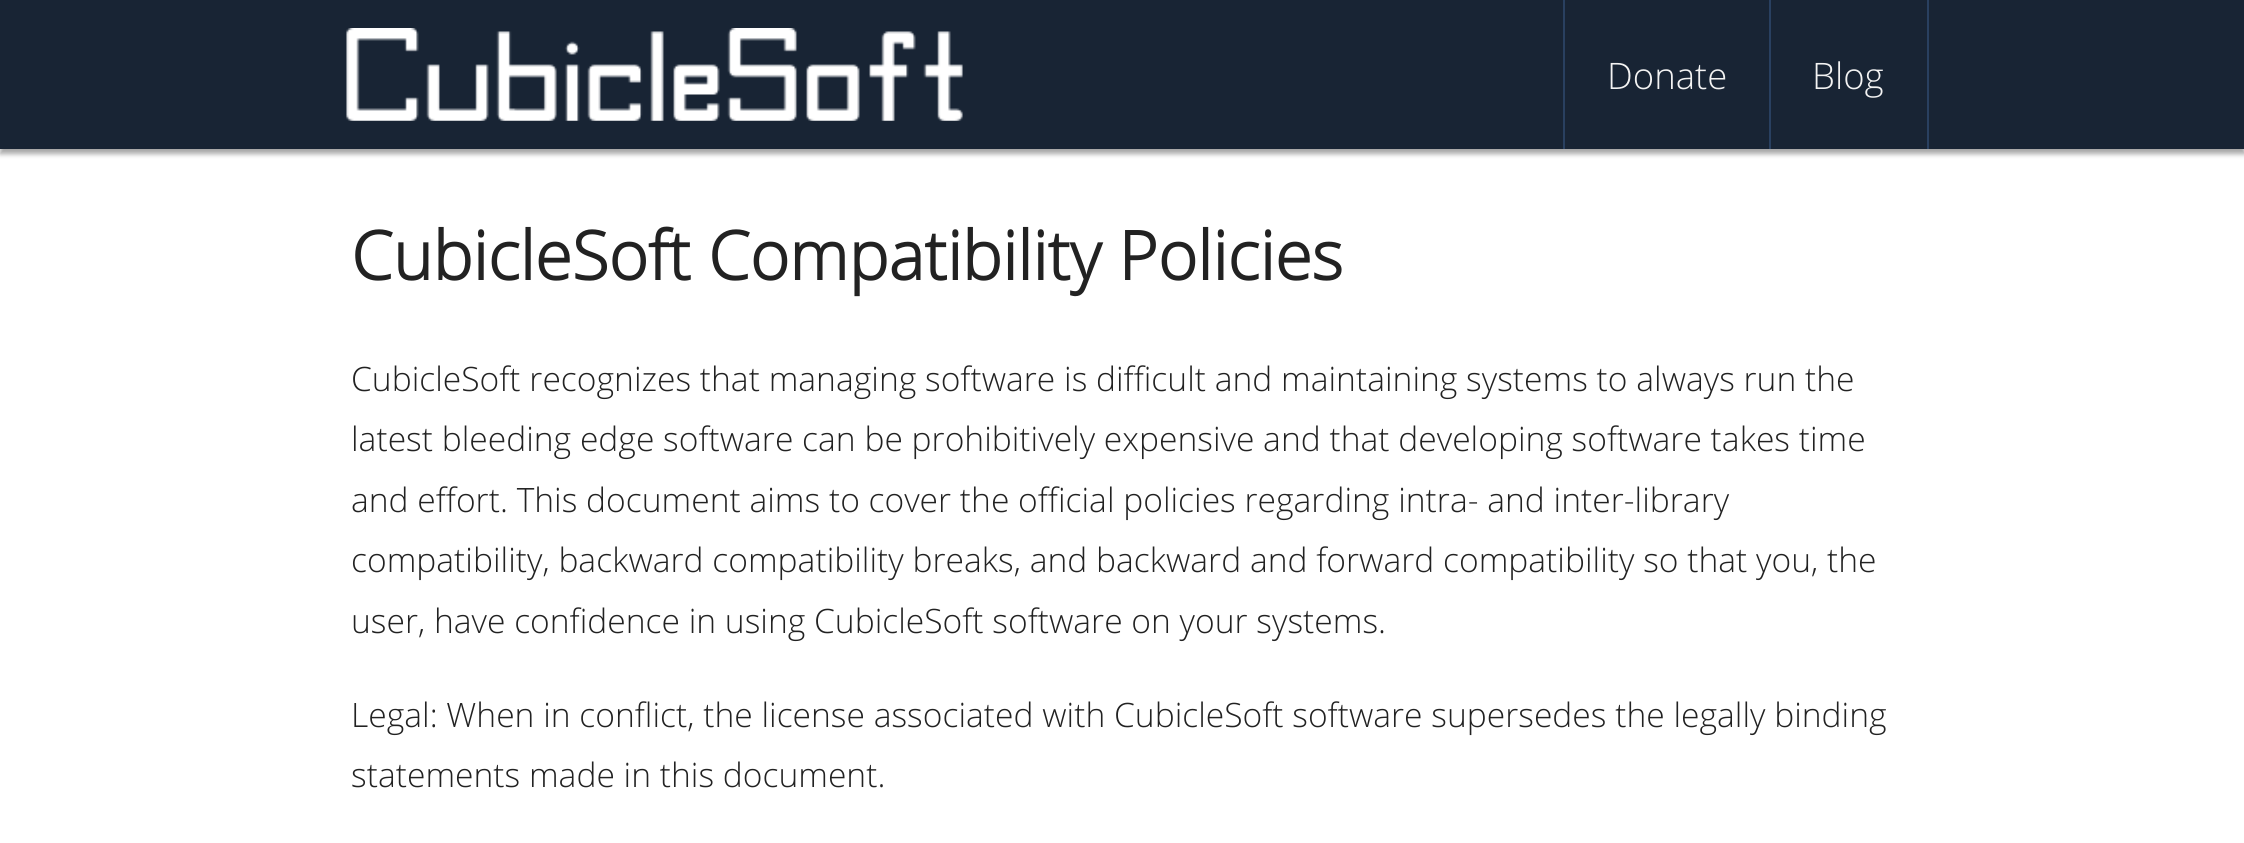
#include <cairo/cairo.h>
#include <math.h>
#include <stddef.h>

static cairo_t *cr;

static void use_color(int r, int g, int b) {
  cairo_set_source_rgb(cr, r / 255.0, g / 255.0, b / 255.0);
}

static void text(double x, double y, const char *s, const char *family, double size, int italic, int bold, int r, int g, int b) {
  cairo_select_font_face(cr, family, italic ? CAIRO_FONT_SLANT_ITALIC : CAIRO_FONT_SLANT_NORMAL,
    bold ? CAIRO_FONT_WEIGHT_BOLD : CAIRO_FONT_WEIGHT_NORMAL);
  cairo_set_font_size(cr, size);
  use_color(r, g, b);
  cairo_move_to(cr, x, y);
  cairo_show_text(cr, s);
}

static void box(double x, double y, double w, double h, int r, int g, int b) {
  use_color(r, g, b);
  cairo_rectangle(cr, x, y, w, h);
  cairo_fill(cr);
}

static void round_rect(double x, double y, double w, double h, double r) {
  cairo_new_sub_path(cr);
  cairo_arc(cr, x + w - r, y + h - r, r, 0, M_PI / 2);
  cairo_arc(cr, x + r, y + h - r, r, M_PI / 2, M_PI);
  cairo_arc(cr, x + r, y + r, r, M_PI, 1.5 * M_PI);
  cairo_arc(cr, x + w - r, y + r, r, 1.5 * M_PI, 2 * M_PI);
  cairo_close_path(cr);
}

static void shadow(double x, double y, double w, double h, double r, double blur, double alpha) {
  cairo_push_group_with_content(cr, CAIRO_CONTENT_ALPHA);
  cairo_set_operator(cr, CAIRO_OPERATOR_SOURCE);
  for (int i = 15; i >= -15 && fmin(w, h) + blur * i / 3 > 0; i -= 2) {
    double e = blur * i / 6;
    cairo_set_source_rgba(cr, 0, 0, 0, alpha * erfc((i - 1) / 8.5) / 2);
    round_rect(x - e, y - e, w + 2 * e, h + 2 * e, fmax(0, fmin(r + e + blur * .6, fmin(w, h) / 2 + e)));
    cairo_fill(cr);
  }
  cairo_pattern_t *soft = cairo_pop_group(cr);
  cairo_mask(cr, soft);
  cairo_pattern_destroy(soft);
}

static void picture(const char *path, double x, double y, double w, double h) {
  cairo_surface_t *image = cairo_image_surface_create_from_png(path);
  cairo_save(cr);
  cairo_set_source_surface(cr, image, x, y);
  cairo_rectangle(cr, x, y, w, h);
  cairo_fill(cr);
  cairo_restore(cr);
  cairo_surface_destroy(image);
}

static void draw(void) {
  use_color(255, 255, 255);
  cairo_paint(cr);
  use_color(0, 0, 0);
  shadow(0, 5, 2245, 149, 0, 2.5, 0.35);
  box(0, 0, 2244, 149, 24, 36, 52);
  picture("img_01.png", 346, 28, 617, 93);
  box(1563, 0, 2, 149, 41, 64, 96);
  box(1927, 0, 2, 149, 41, 64, 96);
  box(1769, 0, 2, 149, 41, 64, 96);
  text(1607, 89, "Donate", "Open Sans Light", 36.5, 0, 0, 243, 243, 243);
  text(1812, 89, "Blog", "Open Sans Light", 36.5, 0, 0, 243, 243, 243);
  text(351, 280, "CubicleSoft Compatibility Policies", "Open Sans", 67.25, 0, 1, 34, 34, 34);
  text(351, 391, "CubicleSoft recognizes that managing software is difficult and maintaining systems to always run the", "Open Sans Light", 33.6, 0, 0, 34, 34, 34);
  text(351, 451, "latest bleeding edge software can be prohibitively expensive and that developing software takes time", "Open Sans Light", 33.6, 0, 0, 34, 34, 34);
  text(351, 512, "and effort. This document aims to cover the official policies regarding intra- and inter-library", "Open Sans Light", 33.6, 0, 0, 34, 34, 34);
  text(351, 572, "compatibility, backward compatibility breaks, and backward and forward compatibility so that you, the", "Open Sans Light", 33.6, 0, 0, 34, 34, 34);
  text(351, 633, "user, have confidence in using CubicleSoft software on your systems.", "Open Sans Light", 33.6, 0, 0, 34, 34, 34);
  text(351, 727, "Legal: When in conflict, the license associated with CubicleSoft software supersedes the legally binding", "Open Sans Light", 33.6, 0, 0, 34, 34, 34);
  text(351, 787, "statements made in this document.", "Open Sans Light", 33.6, 0, 0, 34, 34, 34);
}

int main(void) {
  cairo_surface_t *surface = cairo_image_surface_create(CAIRO_FORMAT_RGB24, 2244, 843);
  cr = cairo_create(surface);
  cairo_font_options_t *options = cairo_font_options_create();
  cairo_font_options_set_hint_metrics(options, CAIRO_HINT_METRICS_OFF);
  cairo_font_options_set_hint_style(options, CAIRO_HINT_STYLE_NONE);
  cairo_set_font_options(cr, options);
  cairo_set_miter_limit(cr, 4);
  draw();
  cairo_surface_write_to_png(surface, "out.png");
  cairo_font_options_destroy(options);
  cairo_destroy(cr);
  cairo_surface_destroy(surface);
  return 0;
}
